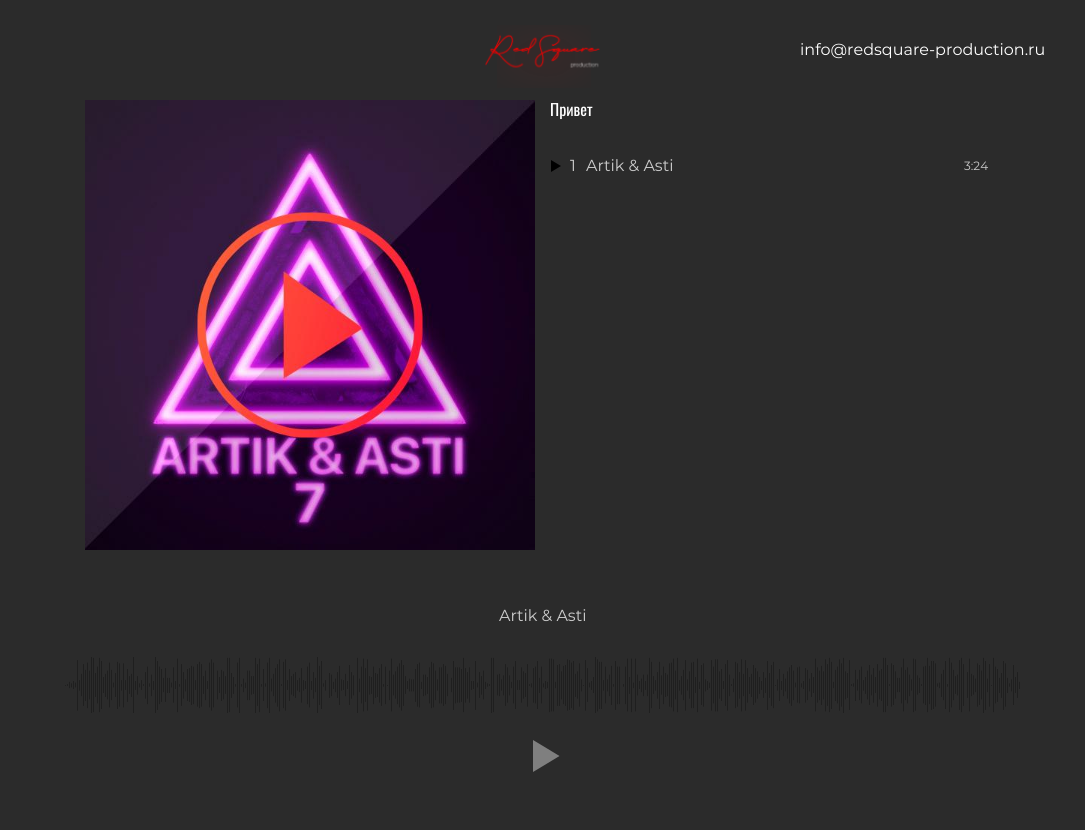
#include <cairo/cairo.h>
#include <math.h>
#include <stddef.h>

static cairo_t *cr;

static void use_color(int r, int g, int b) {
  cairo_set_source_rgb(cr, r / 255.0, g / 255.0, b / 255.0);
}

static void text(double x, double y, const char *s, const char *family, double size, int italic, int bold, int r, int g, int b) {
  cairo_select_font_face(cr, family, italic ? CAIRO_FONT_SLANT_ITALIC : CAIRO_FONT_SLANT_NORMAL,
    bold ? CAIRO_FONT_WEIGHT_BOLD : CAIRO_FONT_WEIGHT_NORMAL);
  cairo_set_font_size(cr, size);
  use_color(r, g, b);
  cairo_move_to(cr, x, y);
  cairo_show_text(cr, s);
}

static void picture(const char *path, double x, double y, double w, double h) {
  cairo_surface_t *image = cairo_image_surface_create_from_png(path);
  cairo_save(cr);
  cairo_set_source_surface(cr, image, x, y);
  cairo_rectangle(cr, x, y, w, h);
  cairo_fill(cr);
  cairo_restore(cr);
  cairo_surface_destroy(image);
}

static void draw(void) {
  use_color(43, 43, 43);
  cairo_paint(cr);
  picture("img_01.png", 497, 25, 94, 63);
  picture("img_02.png", 485, 34, 115, 34);
  picture("img_03.png", 85, 100, 450, 450);
  use_color(0, 0, 0);
  cairo_new_path(cr);
  cairo_move_to(cr, 551, 160);
  cairo_line_to(cr, 561, 166);
  cairo_line_to(cr, 551, 172);
  cairo_close_path(cr);
  cairo_fill(cr);
  picture("img_04.png", 65, 657, 955, 56);
  use_color(127, 127, 127);
  cairo_new_path(cr);
  cairo_move_to(cr, 533, 740);
  cairo_line_to(cr, 559.5, 756);
  cairo_line_to(cr, 533, 772);
  cairo_close_path(cr);
  cairo_fill(cr);
  text(800, 55, "info@redsquare-production.ru", "Montserrat", 16, 0, 0, 255, 255, 255);
  text(550, 116, "Привет", "Oswald", 16, 0, 0, 255, 255, 255);
  text(570, 171, "1", "Montserrat", 16, 0, 0, 204, 204, 204);
  text(586, 171, "Artik & Asti", "Montserrat", 16, 0, 0, 204, 204, 204);
  text(964, 170, "3:24", "Montserrat", 12, 0, 0, 204, 204, 204);
  text(499, 621, "Artik & Asti", "Montserrat", 16, 0, 0, 204, 204, 204);
}

int main(void) {
  cairo_surface_t *surface = cairo_image_surface_create(CAIRO_FORMAT_RGB24, 1085, 830);
  cr = cairo_create(surface);
  cairo_font_options_t *options = cairo_font_options_create();
  cairo_font_options_set_hint_metrics(options, CAIRO_HINT_METRICS_OFF);
  cairo_font_options_set_hint_style(options, CAIRO_HINT_STYLE_NONE);
  cairo_set_font_options(cr, options);
  cairo_set_miter_limit(cr, 4);
  draw();
  cairo_surface_write_to_png(surface, "out.png");
  cairo_font_options_destroy(options);
  cairo_destroy(cr);
  cairo_surface_destroy(surface);
  return 0;
}
